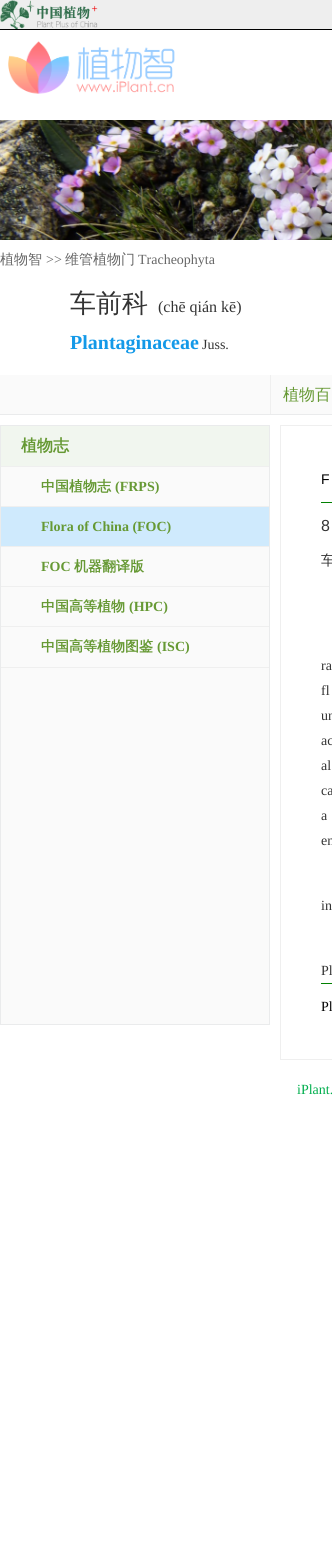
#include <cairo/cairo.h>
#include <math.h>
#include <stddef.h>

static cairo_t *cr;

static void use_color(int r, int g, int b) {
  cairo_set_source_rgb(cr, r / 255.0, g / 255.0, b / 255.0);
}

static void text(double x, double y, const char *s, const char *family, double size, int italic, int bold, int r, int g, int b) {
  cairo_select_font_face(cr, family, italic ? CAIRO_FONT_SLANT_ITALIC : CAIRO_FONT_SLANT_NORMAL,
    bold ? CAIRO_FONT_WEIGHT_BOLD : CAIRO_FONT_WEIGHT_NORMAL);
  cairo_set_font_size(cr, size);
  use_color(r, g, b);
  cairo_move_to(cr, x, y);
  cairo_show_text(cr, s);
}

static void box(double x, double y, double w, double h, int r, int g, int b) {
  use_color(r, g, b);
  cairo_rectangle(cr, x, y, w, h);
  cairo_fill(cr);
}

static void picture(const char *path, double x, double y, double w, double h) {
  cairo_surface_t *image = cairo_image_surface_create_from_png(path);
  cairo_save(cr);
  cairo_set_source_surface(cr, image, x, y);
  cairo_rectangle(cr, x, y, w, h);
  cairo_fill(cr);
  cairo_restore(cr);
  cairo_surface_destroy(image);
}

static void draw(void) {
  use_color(255, 255, 255);
  cairo_paint(cr);
  box(0, 0, 332, 29, 238, 238, 238);
  box(0, 29, 332, 1, 0, 0, 0);
  picture("img_01.png", 0, 0, 98, 29);
  picture("img_02.png", 8, 41, 167, 53);
  picture("img_03.png", 0, 120, 332, 120);
  box(0, 375, 332, 39, 250, 250, 250);
  box(0, 414, 332, 1, 234, 235, 236);
  box(270, 375, 1, 39, 239, 239, 239);
  box(1, 467, 268, 557, 250, 250, 250);
  cairo_rectangle(cr, 0.5, 425.5, 269, 599);
  use_color(234, 235, 236);
  cairo_set_line_width(cr, 1);
  cairo_stroke(cr);
  box(1, 426, 268, 40, 241, 246, 239);
  box(1, 466, 268, 1, 239, 239, 239);
  box(1, 506, 268, 1, 239, 239, 239);
  box(1, 507, 268, 39, 207, 234, 253);
  box(1, 546, 268, 1, 239, 239, 239);
  box(1, 586, 268, 1, 239, 239, 239);
  box(1, 626, 268, 1, 239, 239, 239);
  box(1, 667, 268, 1, 239, 239, 239);
  cairo_rectangle(cr, 280.5, 425.5, 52, 634);
  cairo_stroke(cr);
  box(321, 502, 11, 1, 2, 129, 2);
  box(321, 983, 11, 1, 2, 129, 2);
  text(0, 264, "植物智", "WenQuanYi Zen Hei Medium", 14, 0, 0, 102, 102, 102);
  text(46, 264, ">>", "Liberation Serif", 14, 0, 0, 102, 102, 102);
  text(65, 264, "维管植物门", "WenQuanYi Zen Hei Medium", 14, 0, 0, 102, 102, 102);
  text(138, 264, "Tracheophyta", "Liberation Serif", 14, 0, 0, 102, 102, 102);
  text(70, 312, "车前科", "WenQuanYi Zen Hei Medium", 26, 0, 0, 51, 51, 51);
  text(158, 312, "(chē qián kē)", "Liberation Serif", 16, 0, 0, 51, 51, 51);
  text(70, 349, "Plantaginaceae", "Liberation Serif", 20, 0, 1, 19, 153, 232);
  text(202, 349, "Juss.", "Liberation Serif", 14, 0, 0, 51, 51, 51);
  text(283, 400, "植物百", "WenQuanYi Zen Hei Medium", 16, 0, 0, 102, 153, 52);
  text(21, 451, "植物志", "WenQuanYi Zen Hei", 16, 0, 1, 102, 153, 52);
  text(41, 491, "中国植物志", "WenQuanYi Zen Hei", 14, 0, 1, 102, 153, 52);
  text(115, 491, "(FRPS)", "Liberation Serif", 14, 0, 1, 102, 153, 52);
  text(41, 531, "Flora of China (FOC)", "Liberation Serif", 14, 0, 1, 102, 153, 52);
  text(41, 571, "FOC", "Liberation Serif", 14, 0, 1, 102, 153, 52);
  text(74, 571, "机器翻译版", "WenQuanYi Zen Hei", 14, 0, 1, 102, 153, 52);
  text(41, 611, "中国高等植物", "WenQuanYi Zen Hei", 14, 0, 1, 102, 153, 52);
  text(129, 611, "(HPC)", "Liberation Serif", 14, 0, 1, 102, 153, 52);
  text(41, 651, "中国高等植物图鉴", "WenQuanYi Zen Hei", 14, 0, 1, 102, 153, 52);
  text(157, 651, "(ISC)", "Liberation Serif", 14, 0, 1, 102, 153, 52);
  text(321, 484, "F", "Liberation Sans", 14, 0, 0, 0, 0, 0);
  text(321, 531, "8", "Liberation Sans", 16, 0, 0, 51, 51, 51);
  text(321, 565, "车", "WenQuanYi Zen Hei Medium", 14, 0, 0, 51, 51, 51);
  text(321, 670, "ra", "Liberation Serif", 14, 0, 0, 51, 51, 51);
  text(321, 695, "fl", "Liberation Serif", 14, 0, 0, 51, 51, 51);
  text(321, 720, "un", "Liberation Serif", 14, 0, 0, 51, 51, 51);
  text(321, 745, "ac", "Liberation Serif", 14, 0, 0, 51, 51, 51);
  text(321, 770, "al", "Liberation Serif", 14, 0, 0, 51, 51, 51);
  text(321, 795, "ca", "Liberation Serif", 14, 0, 0, 51, 51, 51);
  text(321, 820, "a", "Liberation Serif", 14, 0, 0, 51, 51, 51);
  text(321, 845, "en", "Liberation Serif", 14, 0, 0, 51, 51, 51);
  text(321, 910, "in", "Liberation Serif", 14, 0, 0, 51, 51, 51);
  text(321, 975, "Pl", "Liberation Serif", 14, 0, 0, 51, 51, 51);
  text(321, 1011, "Pl", "Liberation Serif", 14, 0, 0, 0, 0, 0);
  text(297, 1094, "iPlant.", "Liberation Serif", 14, 0, 0, 0, 174, 77);
}

int main(void) {
  cairo_surface_t *surface = cairo_image_surface_create(CAIRO_FORMAT_RGB24, 332, 1556);
  cr = cairo_create(surface);
  cairo_font_options_t *options = cairo_font_options_create();
  cairo_font_options_set_hint_metrics(options, CAIRO_HINT_METRICS_OFF);
  cairo_font_options_set_hint_style(options, CAIRO_HINT_STYLE_NONE);
  cairo_set_font_options(cr, options);
  cairo_set_miter_limit(cr, 4);
  draw();
  cairo_surface_write_to_png(surface, "out.png");
  cairo_font_options_destroy(options);
  cairo_destroy(cr);
  cairo_surface_destroy(surface);
  return 0;
}
